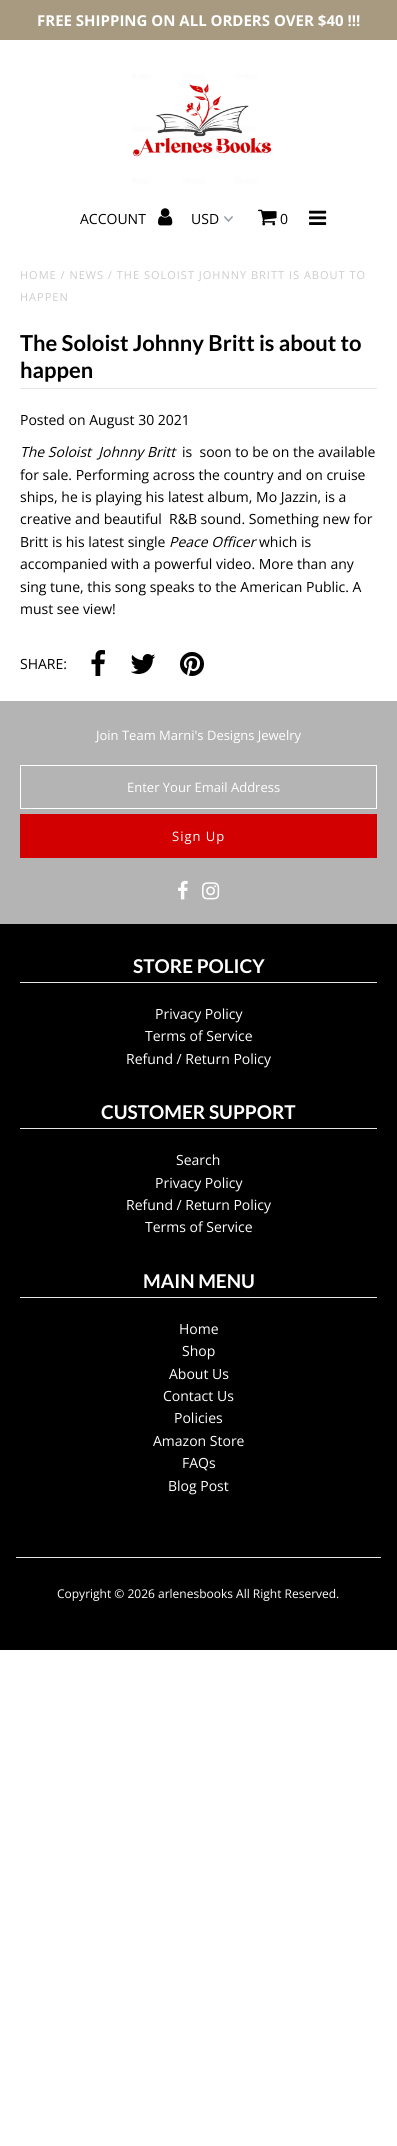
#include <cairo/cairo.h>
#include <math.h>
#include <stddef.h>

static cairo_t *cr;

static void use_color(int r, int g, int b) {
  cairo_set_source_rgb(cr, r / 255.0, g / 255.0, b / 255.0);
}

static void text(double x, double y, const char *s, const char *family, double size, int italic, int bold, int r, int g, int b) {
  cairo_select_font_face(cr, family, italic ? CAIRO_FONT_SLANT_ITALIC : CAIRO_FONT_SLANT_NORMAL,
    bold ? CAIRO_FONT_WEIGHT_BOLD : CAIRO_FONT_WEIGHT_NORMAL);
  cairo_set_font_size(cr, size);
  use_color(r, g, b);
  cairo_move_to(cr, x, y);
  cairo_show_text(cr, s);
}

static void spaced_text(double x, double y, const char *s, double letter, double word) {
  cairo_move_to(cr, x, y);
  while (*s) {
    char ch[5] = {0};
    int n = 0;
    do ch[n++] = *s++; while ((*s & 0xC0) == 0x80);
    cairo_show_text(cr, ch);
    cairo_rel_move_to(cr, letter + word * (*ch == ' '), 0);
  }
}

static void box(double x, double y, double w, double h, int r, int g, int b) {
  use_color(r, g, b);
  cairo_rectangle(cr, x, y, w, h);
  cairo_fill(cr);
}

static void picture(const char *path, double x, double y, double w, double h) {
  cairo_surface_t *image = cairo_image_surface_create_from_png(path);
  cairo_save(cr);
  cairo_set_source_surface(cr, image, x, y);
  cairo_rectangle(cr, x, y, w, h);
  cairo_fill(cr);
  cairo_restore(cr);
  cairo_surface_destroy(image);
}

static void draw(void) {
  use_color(255, 255, 255);
  cairo_paint(cr);
  box(0, 0, 397, 40, 167, 154, 128);
  picture("img_01.png", 132, 73, 140, 111);
  picture("img_02.png", 158, 208, 15, 18);
  picture("img_03.png", 224, 216, 9, 6);
  picture("img_04.png", 258, 209, 19, 17);
  picture("img_05.png", 309, 210, 18, 15);
  box(20, 388, 357, 1, 229, 229, 229);
  picture("img_06.png", 91, 650, 14, 26);
  picture("img_07.png", 130, 654, 26, 20);
  picture("img_08.png", 180, 652, 24, 24);
  box(0, 701, 397, 223, 180, 180, 180);
  cairo_rectangle(cr, 20.5, 765.5, 356, 43);
  use_color(255, 255, 255);
  cairo_set_line_width(cr, 1);
  cairo_stroke(cr);
  box(20, 814, 357, 44, 210, 0, 0);
  picture("img_09.png", 178, 880, 10, 20);
  picture("img_10.png", 202, 882, 18, 18);
  box(0, 924, 397, 726, 0, 0, 0);
  box(20, 982, 357, 1, 229, 229, 229);
  box(20, 1128, 357, 1, 229, 229, 229);
  box(20, 1297, 357, 1, 229, 229, 229);
  box(16, 1557, 365, 1, 229, 229, 229);
  text(37, 26, "FREE SHIPPING ON ALL ORDERS OVER $40 !!!", "Open Sans", 15, 0, 1, 255, 255, 255);
  text(80, 224, "ACCOUNT", "Open Sans", 14, 0, 0, 0, 0, 0);
  text(191, 224, "USD", "Open Sans", 14, 0, 0, 0, 0, 0);
  text(280, 224, "0", "Open Sans", 14, 0, 0, 0, 0, 0);
  cairo_set_font_size(cr, 11);
  use_color(204, 204, 204);
  spaced_text(20, 279, "HOME / NEWS / THE SOLOIST JOHNNY BRITT IS ABOUT TO", 1, 0);
  spaced_text(20, 301, "HAPPEN", 1, 0);
  text(20, 351, "The Soloist Johnny Britt is about to", "Lato", 22, 0, 1, 0, 0, 0);
  text(20, 378, "happen", "Lato", 22, 0, 1, 0, 0, 0);
  text(20, 425, "Posted on August 30 2021", "Open Sans", 14, 0, 0, 0, 0, 0);
  text(20, 457, "The Soloist  Johnny Britt", "Open Sans", 14, 1, 0, 0, 0, 0);
  text(182, 457, "is  soon to be on the available", "Open Sans", 14, 0, 0, 0, 0, 0);
  text(20, 480, "for sale. Performing across the country and on cruise", "Open Sans", 14, 0, 0, 0, 0, 0);
  text(20, 502, "ships, he is playing his latest album, Mo Jazzin, is a", "Open Sans", 14, 0, 0, 0, 0, 0);
  text(20, 524, "creative and beautiful  R&B sound. Something new for", "Open Sans", 14, 0, 0, 0, 0, 0);
  text(20, 547, "Britt is his latest single", "Open Sans", 14, 0, 0, 0, 0, 0);
  text(169, 547, "Peace Officer", "Open Sans", 14, 1, 0, 0, 0, 0);
  text(259, 547, "which is", "Open Sans", 14, 0, 0, 0, 0, 0);
  text(20, 569, "accompanied with a powerful video. More than any", "Open Sans", 14, 0, 0, 0, 0, 0);
  text(20, 592, "sing tune, this song speaks to the American Public. A", "Open Sans", 14, 0, 0, 0, 0, 0);
  text(20, 614, "must see view!", "Open Sans", 14, 0, 0, 0, 0, 0);
  text(20, 669, "SHARE:", "Open Sans", 14, 0, 0, 0, 0, 0);
  text(96, 740, "Join Team Marni's Designs Jewelry", "Open Sans", 13, 0, 0, 255, 255, 255);
  text(127, 792, "Enter Your Email Address", "Open Sans", 13, 0, 0, 255, 255, 255);
  spaced_text(172, 841, "Sign Up", 1, 0);
  text(133, 973, "STORE POLICY", "Lato", 19, 0, 1, 255, 255, 255);
  text(155, 1019, "Privacy Policy", "Open Sans", 14, 0, 0, 255, 255, 255);
  text(145, 1041, "Terms of Service", "Open Sans", 14, 0, 0, 255, 255, 255);
  text(126, 1064, "Refund / Return Policy", "Open Sans", 14, 0, 0, 255, 255, 255);
  text(101, 1119, "CUSTOMER SUPPORT", "Lato", 19, 0, 1, 255, 255, 255);
  text(176, 1165, "Search", "Open Sans", 14, 0, 0, 255, 255, 255);
  text(155, 1188, "Privacy Policy", "Open Sans", 14, 0, 0, 255, 255, 255);
  text(126, 1210, "Refund / Return Policy", "Open Sans", 14, 0, 0, 255, 255, 255);
  text(145, 1232, "Terms of Service", "Open Sans", 14, 0, 0, 255, 255, 255);
  text(143, 1288, "MAIN MENU", "Lato", 19, 0, 1, 255, 255, 255);
  text(179, 1334, "Home", "Open Sans", 14, 0, 0, 255, 255, 255);
  text(182, 1356, "Shop", "Open Sans", 14, 0, 0, 255, 255, 255);
  text(169, 1379, "About Us", "Open Sans", 14, 0, 0, 255, 255, 255);
  text(163, 1401, "Contact Us", "Open Sans", 14, 0, 0, 255, 255, 255);
  text(174, 1423, "Policies", "Open Sans", 14, 0, 0, 255, 255, 255);
  text(153, 1446, "Amazon Store", "Open Sans", 14, 0, 0, 255, 255, 255);
  text(182, 1468, "FAQs", "Open Sans", 14, 0, 0, 255, 255, 255);
  text(168, 1491, "Blog Post", "Open Sans", 14, 0, 0, 255, 255, 255);
  text(57, 1598, "Copyright © 2026 arlenesbooks All Right Reserved.", "Open Sans", 12, 0, 0, 255, 255, 255);
}

int main(void) {
  cairo_surface_t *surface = cairo_image_surface_create(CAIRO_FORMAT_RGB24, 397, 2146);
  cr = cairo_create(surface);
  cairo_font_options_t *options = cairo_font_options_create();
  cairo_font_options_set_hint_metrics(options, CAIRO_HINT_METRICS_OFF);
  cairo_font_options_set_hint_style(options, CAIRO_HINT_STYLE_NONE);
  cairo_set_font_options(cr, options);
  cairo_set_miter_limit(cr, 4);
  draw();
  cairo_surface_write_to_png(surface, "out.png");
  cairo_font_options_destroy(options);
  cairo_destroy(cr);
  cairo_surface_destroy(surface);
  return 0;
}
